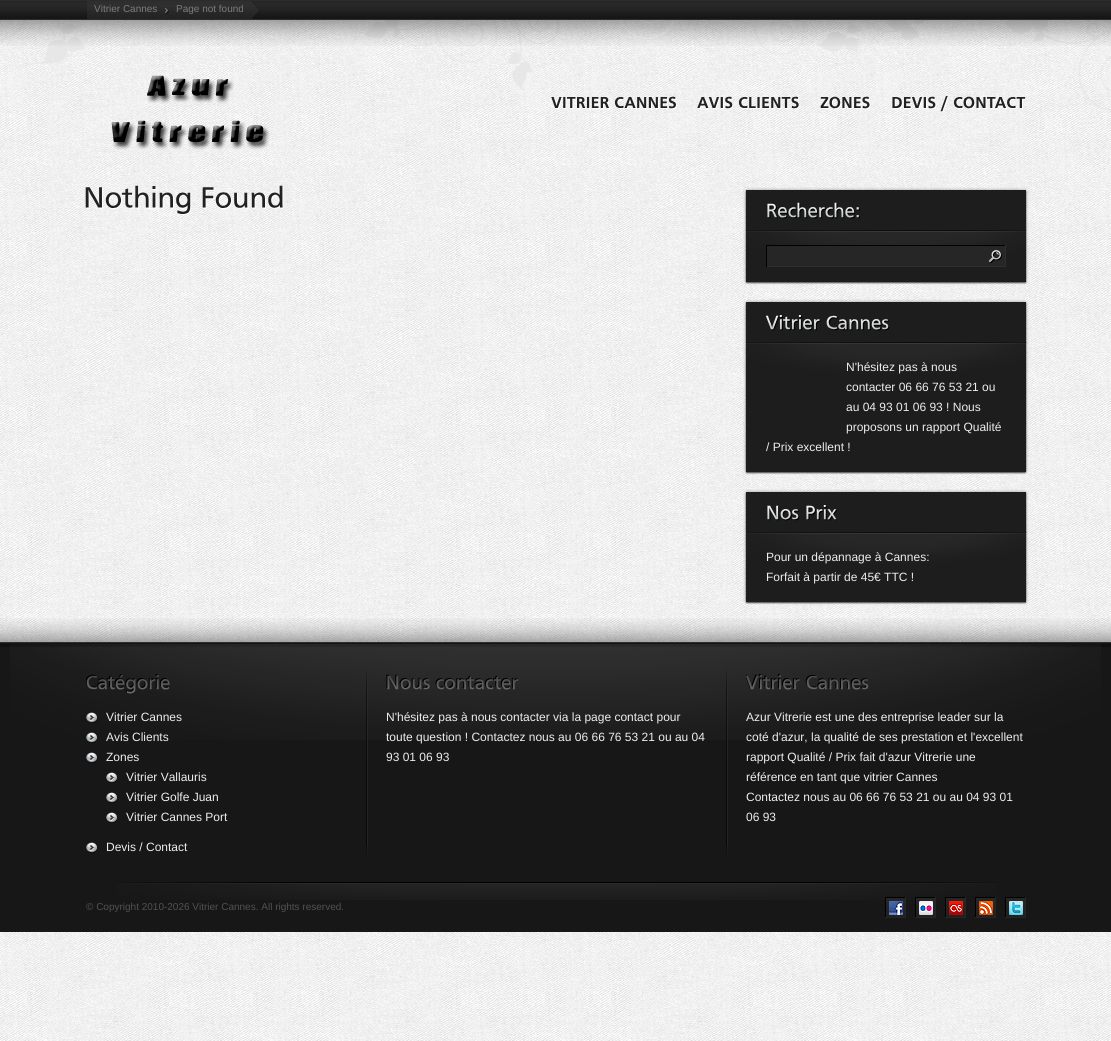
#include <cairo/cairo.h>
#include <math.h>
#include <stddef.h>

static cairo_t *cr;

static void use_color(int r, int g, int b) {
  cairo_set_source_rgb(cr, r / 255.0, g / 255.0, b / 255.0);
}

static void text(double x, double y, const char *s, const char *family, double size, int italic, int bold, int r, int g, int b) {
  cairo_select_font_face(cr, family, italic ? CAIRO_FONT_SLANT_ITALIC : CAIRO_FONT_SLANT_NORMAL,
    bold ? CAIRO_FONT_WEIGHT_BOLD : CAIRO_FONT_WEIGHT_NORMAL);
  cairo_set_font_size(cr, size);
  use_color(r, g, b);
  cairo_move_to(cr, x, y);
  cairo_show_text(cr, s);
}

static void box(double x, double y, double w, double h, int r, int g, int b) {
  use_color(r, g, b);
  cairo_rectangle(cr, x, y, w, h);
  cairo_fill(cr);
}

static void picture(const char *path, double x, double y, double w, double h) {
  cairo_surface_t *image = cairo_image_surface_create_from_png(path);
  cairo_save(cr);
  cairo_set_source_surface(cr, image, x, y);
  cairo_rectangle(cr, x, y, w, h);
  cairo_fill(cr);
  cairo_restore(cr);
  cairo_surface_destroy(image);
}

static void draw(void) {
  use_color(255, 255, 255);
  cairo_paint(cr);
  picture("img_01.png", 0, 20, 1111, 1021);
  picture("img_02.png", 0, 20, 1111, 91);
  picture("img_03.png", 0, 0, 1111, 46);
  box(86, 3, 2, 2, 35, 35, 35);
  picture("img_04.png", 87, 1, 82, 18);
  picture("img_05.png", 165, 8, 4, 6);
  picture("img_04.png", 169, 1, 82, 18);
  picture("img_06.png", 251, 1, 9, 18);
  picture("img_07.png", 111, 75, 159, 75);
  picture("img_08.png", 551, 97, 59, 12);
  picture("img_09.png", 614, 96, 63, 14);
  picture("img_10.png", 697, 96, 37, 14);
  picture("img_11.png", 738, 96, 62, 13);
  picture("img_12.png", 820, 96, 51, 14);
  picture("img_13.png", 892, 96, 45, 14);
  picture("img_14.png", 940, 96, 9, 17);
  picture("img_15.png", 953, 96, 73, 14);
  picture("img_16.png", 85, 185, 107, 30);
  picture("img_17.png", 202, 185, 82, 24);
  picture("img_18.png", 743, 187, 286, 92);
  picture("img_19.png", 767, 202, 93, 17);
  box(767, 246, 238, 20, 38, 38, 38);
  box(766, 245, 240, 1, 0, 0, 0);
  box(1005, 245, 1, 22, 47, 47, 47);
  box(766, 266, 240, 1, 47, 47, 47);
  box(766, 245, 1, 22, 0, 0, 0);
  picture("img_20.png", 988, 250, 14, 13);
  picture("img_21.png", 743, 279, 286, 6);
  picture("img_22.png", 743, 299, 286, 170);
  picture("img_23.png", 765, 315, 56, 16);
  picture("img_24.png", 826, 315, 64, 16);
  picture("img_25.png", 743, 469, 286, 6);
  picture("img_26.png", 743, 489, 286, 110);
  picture("img_27.png", 767, 505, 33, 16);
  picture("img_28.png", 806, 505, 31, 16);
  picture("img_29.png", 743, 599, 286, 6);
  picture("img_30.png", 0, 618, 1111, 24);
  box(0, 647, 1111, 285, 23, 23, 23);
  picture("img_31.png", 0, 642, 1111, 5);
  picture("img_32.png", 10, 644, 1091, 96);
  picture("img_33.png", 366, 669, 362, 175);
  picture("img_34.png", 366, 844, 362, 13);
  picture("img_35.png", 86, 674, 84, 20);
  picture("img_36.png", 86, 712, 11, 11);
  picture("img_37.png", 86, 732, 11, 11);
  picture("img_38.png", 86, 752, 11, 11);
  picture("img_38.png", 106, 772, 11, 11);
  picture("img_38.png", 106, 792, 11, 11);
  picture("img_38.png", 106, 812, 11, 11);
  picture("img_38.png", 86, 842, 11, 11);
  picture("img_39.png", 386, 674, 44, 16);
  picture("img_40.png", 435, 675, 84, 15);
  picture("img_41.png", 746, 674, 54, 16);
  picture("img_42.png", 805, 674, 64, 16);
  picture("img_43.png", 117, 882, 880, 18);
  box(885, 897, 21, 21, 38, 38, 38);
  picture("img_44.png", 885, 897, 20, 20);
  picture("img_45.png", 889, 901, 14, 14);
  box(915, 897, 21, 21, 38, 38, 38);
  picture("img_44.png", 915, 897, 20, 20);
  picture("img_46.png", 919, 901, 14, 14);
  box(945, 897, 21, 21, 38, 38, 38);
  picture("img_44.png", 945, 897, 20, 20);
  picture("img_47.png", 949, 901, 14, 14);
  box(975, 897, 21, 21, 38, 38, 38);
  picture("img_44.png", 975, 897, 20, 20);
  picture("img_48.png", 979, 901, 14, 14);
  box(1005, 897, 21, 21, 38, 38, 38);
  picture("img_44.png", 1005, 897, 20, 20);
  picture("img_49.png", 1009, 901, 14, 14);
  text(94, 12, "Vitrier Cannes", "Liberation Sans", 10, 0, 0, 124, 124, 124);
  text(176, 12, "Page not found", "Liberation Sans", 10, 0, 0, 124, 124, 124);
  text(846, 371, "N'hésitez pas à nous", "Liberation Sans", 12, 0, 0, 237, 237, 237);
  text(846, 391, "contacter 06 66 76 53 21 ou", "Liberation Sans", 12, 0, 0, 237, 237, 237);
  text(846, 411, "au 04 93 01 06 93 ! Nous", "Liberation Sans", 12, 0, 0, 237, 237, 237);
  text(846, 431, "proposons un rapport Qualité", "Liberation Sans", 12, 0, 0, 237, 237, 237);
  text(766, 451, "/ Prix excellent !", "Liberation Sans", 12, 0, 0, 237, 237, 237);
  text(766, 561, "Pour un dépannage à Cannes:", "Liberation Sans", 12, 0, 0, 237, 237, 237);
  text(766, 581, "Forfait à partir de 45€ TTC !", "Liberation Sans", 12, 0, 0, 237, 237, 237);
  text(106, 721, "Vitrier Cannes", "Liberation Sans", 12, 0, 0, 237, 237, 237);
  text(106, 741, "Avis Clients", "Liberation Sans", 12, 0, 0, 237, 237, 237);
  text(106, 761, "Zones", "Liberation Sans", 12, 0, 0, 237, 237, 237);
  text(126, 781, "Vitrier Vallauris", "Liberation Sans", 12, 0, 0, 237, 237, 237);
  text(126, 801, "Vitrier Golfe Juan", "Liberation Sans", 12, 0, 0, 237, 237, 237);
  text(126, 821, "Vitrier Cannes Port", "Liberation Sans", 12, 0, 0, 237, 237, 237);
  text(106, 851, "Devis / Contact", "Liberation Sans", 12, 0, 0, 237, 237, 237);
  text(386, 721, "N'hésitez pas à nous contacter via la page contact pour", "Liberation Sans", 12, 0, 0, 237, 237, 237);
  text(386, 741, "toute question ! Contactez nous au 06 66 76 53 21 ou au 04", "Liberation Sans", 12, 0, 0, 237, 237, 237);
  text(386, 761, "93 01 06 93", "Liberation Sans", 12, 0, 0, 237, 237, 237);
  text(746, 721, "Azur Vitrerie est une des entreprise leader sur la", "Liberation Sans", 12, 0, 0, 237, 237, 237);
  text(746, 741, "coté d'azur, la qualité de ses prestation et l'excellent", "Liberation Sans", 12, 0, 0, 237, 237, 237);
  text(746, 761, "rapport Qualité / Prix fait d'azur Vitrerie une", "Liberation Sans", 12, 0, 0, 237, 237, 237);
  text(746, 781, "référence en tant que vitrier Cannes", "Liberation Sans", 12, 0, 0, 237, 237, 237);
  text(746, 801, "Contactez nous au 06 66 76 53 21 ou au 04 93 01", "Liberation Sans", 12, 0, 0, 237, 237, 237);
  text(746, 821, "06 93", "Liberation Sans", 12, 0, 0, 237, 237, 237);
  text(86, 910, "© Copyright 2010-2026 Vitrier Cannes. All rights reserved.", "Liberation Sans", 10, 0, 0, 81, 81, 81);
}

int main(void) {
  cairo_surface_t *surface = cairo_image_surface_create(CAIRO_FORMAT_RGB24, 1111, 1041);
  cr = cairo_create(surface);
  cairo_font_options_t *options = cairo_font_options_create();
  cairo_font_options_set_hint_metrics(options, CAIRO_HINT_METRICS_OFF);
  cairo_font_options_set_hint_style(options, CAIRO_HINT_STYLE_NONE);
  cairo_set_font_options(cr, options);
  cairo_set_miter_limit(cr, 4);
  draw();
  cairo_surface_write_to_png(surface, "out.png");
  cairo_font_options_destroy(options);
  cairo_destroy(cr);
  cairo_surface_destroy(surface);
  return 0;
}
